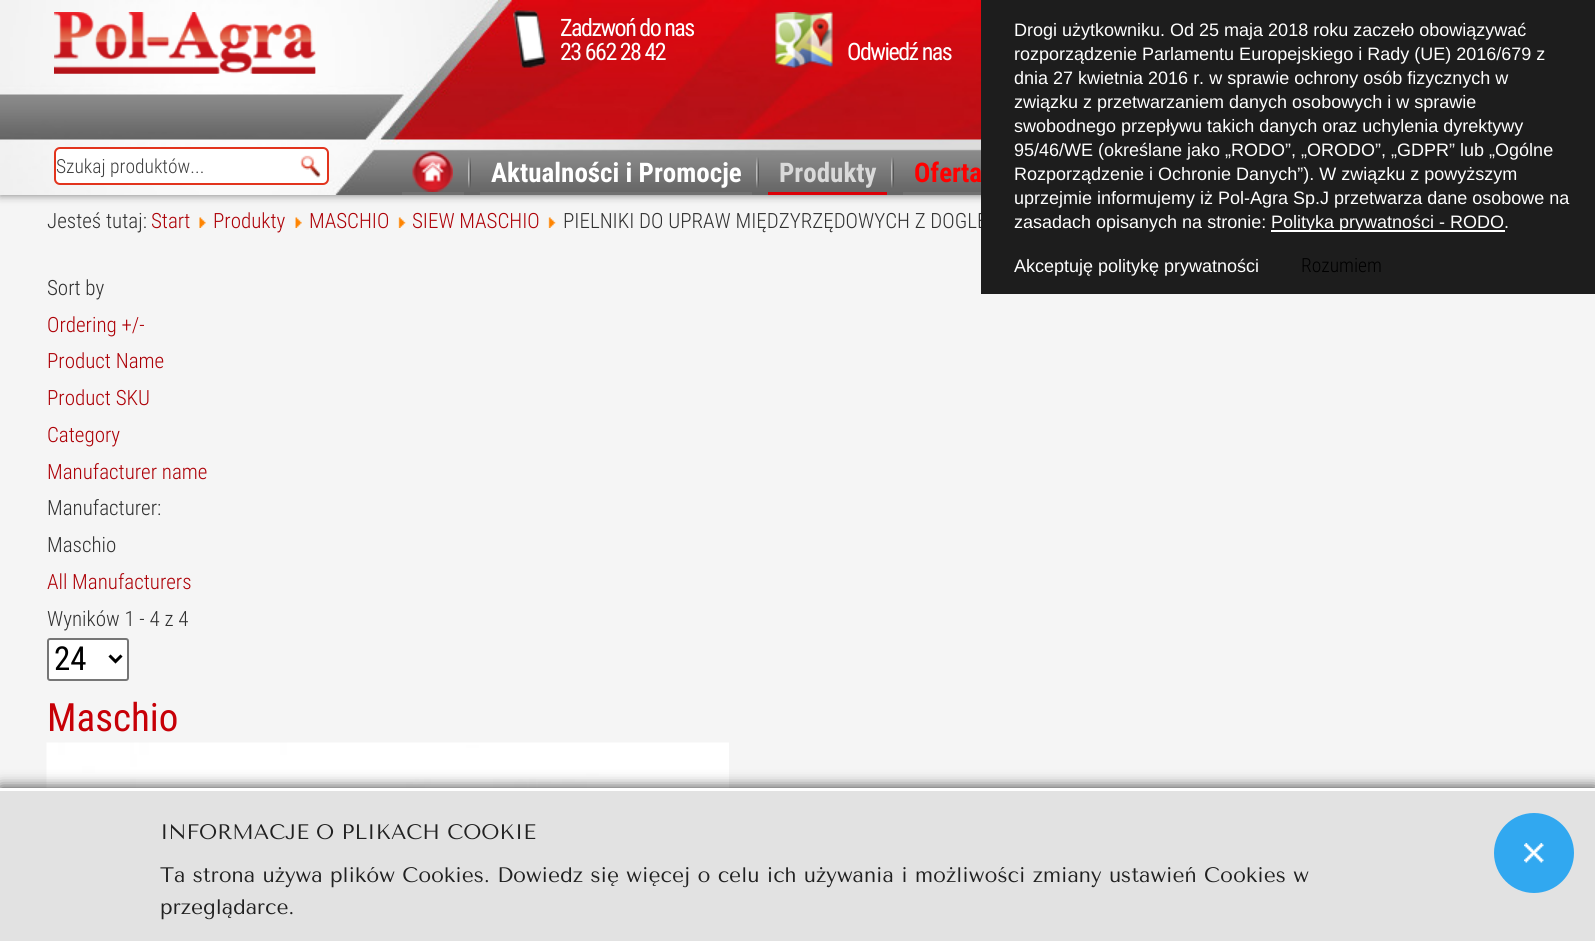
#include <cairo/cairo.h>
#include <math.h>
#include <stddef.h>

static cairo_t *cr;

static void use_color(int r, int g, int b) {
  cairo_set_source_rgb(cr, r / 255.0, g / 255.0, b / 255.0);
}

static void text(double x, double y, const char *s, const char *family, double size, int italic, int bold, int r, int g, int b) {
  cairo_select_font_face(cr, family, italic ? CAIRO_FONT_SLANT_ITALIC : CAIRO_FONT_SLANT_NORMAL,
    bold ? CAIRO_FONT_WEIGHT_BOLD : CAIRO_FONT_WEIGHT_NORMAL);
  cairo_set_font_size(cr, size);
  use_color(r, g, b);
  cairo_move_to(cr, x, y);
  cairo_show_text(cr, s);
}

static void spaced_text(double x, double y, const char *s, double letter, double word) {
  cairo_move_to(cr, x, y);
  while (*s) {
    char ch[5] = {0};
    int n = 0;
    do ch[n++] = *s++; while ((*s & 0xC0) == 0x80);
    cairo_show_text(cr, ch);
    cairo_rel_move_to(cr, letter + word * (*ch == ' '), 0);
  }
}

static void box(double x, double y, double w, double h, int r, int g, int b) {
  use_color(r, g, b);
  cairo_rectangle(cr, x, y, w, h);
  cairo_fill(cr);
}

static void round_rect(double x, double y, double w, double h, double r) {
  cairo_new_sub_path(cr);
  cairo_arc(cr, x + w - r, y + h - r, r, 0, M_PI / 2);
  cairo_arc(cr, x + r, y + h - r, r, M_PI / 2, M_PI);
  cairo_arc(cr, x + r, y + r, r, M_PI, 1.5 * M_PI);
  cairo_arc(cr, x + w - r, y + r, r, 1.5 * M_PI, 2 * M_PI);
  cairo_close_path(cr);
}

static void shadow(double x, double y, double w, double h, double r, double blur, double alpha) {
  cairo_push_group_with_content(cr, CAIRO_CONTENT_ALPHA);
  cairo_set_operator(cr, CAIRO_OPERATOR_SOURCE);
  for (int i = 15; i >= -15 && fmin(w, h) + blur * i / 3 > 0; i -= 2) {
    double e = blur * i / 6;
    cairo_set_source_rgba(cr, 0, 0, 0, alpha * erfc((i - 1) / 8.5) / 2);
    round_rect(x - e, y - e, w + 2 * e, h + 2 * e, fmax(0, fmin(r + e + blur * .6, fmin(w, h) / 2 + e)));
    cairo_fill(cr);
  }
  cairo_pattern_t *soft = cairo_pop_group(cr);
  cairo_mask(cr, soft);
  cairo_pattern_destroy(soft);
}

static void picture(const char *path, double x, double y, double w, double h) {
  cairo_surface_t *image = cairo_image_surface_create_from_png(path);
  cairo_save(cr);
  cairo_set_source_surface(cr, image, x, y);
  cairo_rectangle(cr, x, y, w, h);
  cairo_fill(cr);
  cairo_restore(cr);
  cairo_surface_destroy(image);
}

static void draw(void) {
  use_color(245, 245, 245);
  cairo_paint(cr);
  use_color(0, 0, 0);
  shadow(0, 0, 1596, 195, 0, 4.5, 0.5);
  picture("img_01.png", 0, 0, 981, 195);
  picture("img_02.png", 54, 10, 927, 100);
  picture("img_03.png", 54, 12, 262, 62);
  use_color(255, 255, 255);
  round_rect(55, 148, 273, 36, 5);
  cairo_fill_preserve(cr);
  use_color(226, 52, 29);
  cairo_stroke(cr);
  picture("img_04.png", 300, 155, 21, 23);
  box(402, 192, 62, 3, 112, 112, 112);
  picture("img_05.png", 412, 151, 41, 41);
  picture("img_06.png", 468, 157, 3, 31);
  box(480, 192, 272, 3, 112, 112, 112);
  picture("img_06.png", 756, 157, 3, 31);
  box(768, 192, 119, 3, 219, 0, 7);
  picture("img_07.png", 891, 157, 3, 31);
  box(903, 192, 78, 3, 112, 112, 112);
  picture("img_08.png", 199, 217, 7, 11);
  picture("img_09.png", 295, 217, 7, 11);
  picture("img_10.png", 398, 217, 8, 11);
  picture("img_10.png", 548, 217, 8, 11);
  use_color(255, 255, 255);
  round_rect(48, 639, 80, 41, 2);
  cairo_fill_preserve(cr);
  use_color(118, 118, 118);
  cairo_stroke(cr);
  cairo_new_path(cr);
  cairo_move_to(cr, 109.5, 655.5);
  cairo_line_to(cr, 115.5, 661.5);
  cairo_line_to(cr, 121.5, 655.5);
  use_color(0, 0, 0);
  cairo_set_line_width(cr, 3);
  cairo_stroke(cr);
  picture("img_11.png", 46, 742, 683, 46);
  use_color(0, 0, 0);
  shadow(0, 788, 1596, 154, 0, 7.5, 0.8);
  box(0, 791, 1595, 150, 226, 226, 226);
  box(0, 788, 1595, 3, 255, 255, 255);
  use_color(49, 168, 240);
  cairo_arc(cr, 1534, 853, 40, 0, 2 * M_PI);
  cairo_fill(cr);
  picture("img_12.png", 1524, 843, 20, 20);
  cairo_select_font_face(cr, "Roboto Condensed", CAIRO_FONT_SLANT_NORMAL, CAIRO_FONT_WEIGHT_NORMAL);
  cairo_set_font_size(cr, 24);
  use_color(255, 255, 255);
  spaced_text(560, 36, "Zadzwoń do nas", -1.5, 0);
  spaced_text(560, 60, "23 662 28 42", -1.5, 0);
  spaced_text(847, 60, "Odwiedź nas", -1.5, 0);
  text(56, 173, "Szukaj produktów...", "Roboto Condensed Light", 19.5, 0, 0, 64, 64, 64);
  text(491, 182, "Aktualności i Promocje", "Roboto Condensed", 27, 0, 1, 255, 255, 255);
  text(779, 182, "Produkty", "Roboto Condensed", 27, 0, 1, 217, 217, 217);
  text(914, 182, "Oferta", "Roboto Condensed", 27, 0, 1, 255, 0, 0);
  text(47, 228, "Jesteś tutaj:", "Roboto Condensed Light", 21, 0, 0, 48, 48, 48);
  text(151, 228, "Start", "Roboto Condensed Light", 21, 0, 0, 173, 0, 6);
  text(213, 228, "Produkty", "Roboto Condensed Light", 21, 0, 0, 173, 0, 6);
  text(309, 228, "MASCHIO", "Roboto Condensed Light", 21, 0, 0, 173, 0, 6);
  text(412, 228, "SIEW MASCHIO", "Roboto Condensed Light", 21, 0, 0, 173, 0, 6);
  text(563, 228, "PIELNIKI DO UPRAW MIĘDZYRZĘDOWYCH Z DOGLE", "Roboto Condensed Light", 21, 0, 0, 48, 48, 48);
  text(47, 295, "Sort by", "Roboto Condensed Light", 21, 0, 0, 48, 48, 48);
  text(47, 332, "Ordering +/-", "Roboto Condensed Light", 21, 0, 0, 173, 0, 6);
  text(47, 368, "Product Name", "Roboto Condensed Light", 21, 0, 0, 173, 0, 6);
  text(47, 405, "Product SKU", "Roboto Condensed Light", 21, 0, 0, 173, 0, 6);
  text(47, 442, "Category", "Roboto Condensed Light", 21, 0, 0, 173, 0, 6);
  text(47, 479, "Manufacturer name", "Roboto Condensed Light", 21, 0, 0, 173, 0, 6);
  text(47, 515, "Manufacturer:", "Roboto Condensed Light", 21, 0, 0, 48, 48, 48);
  text(47, 552, "Maschio", "Roboto Condensed Light", 21, 0, 0, 48, 48, 48);
  text(47, 589, "All Manufacturers", "Roboto Condensed Light", 21, 0, 0, 173, 0, 6);
  text(47, 626, "Wyników 1 - 4 z 4", "Roboto Condensed Light", 21, 0, 0, 48, 48, 48);
  text(54, 670, "24", "Roboto Condensed", 33, 0, 0, 0, 0, 0);
  text(47, 731, "Maschio", "Roboto Condensed", 39, 0, 0, 199, 0, 7);
  box(981, 0, 614, 294, 29, 29, 29);
  text(1014, 36, "Drogi użytkowniku. Od 25 maja 2018 roku zaczeło obowiązywać", "Liberation Sans", 18, 0, 0, 255, 255, 255);
  text(1014, 60, "rozporządzenie Parlamentu Europejskiego i Rady (UE) 2016/679 z", "Liberation Sans", 18, 0, 0, 255, 255, 255);
  text(1014, 84, "dnia 27 kwietnia 2016 r. w sprawie ochrony osób fizycznych w", "Liberation Sans", 18, 0, 0, 255, 255, 255);
  text(1014, 108, "związku z przetwarzaniem danych osobowych i w sprawie", "Liberation Sans", 18, 0, 0, 255, 255, 255);
  text(1014, 132, "swobodnego przepływu takich danych oraz uchylenia dyrektywy", "Liberation Sans", 18, 0, 0, 255, 255, 255);
  text(1014, 156, "95/46/WE (określane jako „RODO”, „ORODO”, „GDPR” lub „Ogólne", "Liberation Sans", 18, 0, 0, 255, 255, 255);
  text(1014, 180, "Rozporządzenie i Ochronie Danych”). W związku z powyższym", "Liberation Sans", 18, 0, 0, 255, 255, 255);
  text(1014, 204, "uprzejmie informujemy iż Pol-Agra Sp.J przetwarza dane osobowe na", "Liberation Sans", 18, 0, 0, 255, 255, 255);
  text(1014, 228, "zasadach opisanych na stronie:", "Liberation Sans", 18, 0, 0, 255, 255, 255);
  box(1271, 230, 234, 2, 255, 255, 255);
  text(1271, 228, "Polityka prywatności - RODO.", "Liberation Sans", 18, 0, 0, 255, 255, 255);
  text(1014, 272, "Akceptuję politykę prywatności", "Liberation Sans", 18, 0, 0, 255, 255, 255);
  text(1301, 272, "Rozumiem", "Roboto Condensed Light", 19.5, 0, 0, 0, 0, 0);
  text(160, 839, "INFORMACJE O PLIKACH COOKIE", "Tenor Sans", 21, 0, 0, 33, 33, 33);
  text(160, 882, "Ta strona używa plików Cookies. Dowiedz się więcej o celu ich używania i możliwości zmiany ustawień Cookies w", "Tenor Sans", 21, 0, 0, 33, 33, 33);
  text(160, 914, "przeglądarce.", "Tenor Sans", 21, 0, 0, 33, 33, 33);
}

int main(void) {
  cairo_surface_t *surface = cairo_image_surface_create(CAIRO_FORMAT_RGB24, 1595, 941);
  cr = cairo_create(surface);
  cairo_font_options_t *options = cairo_font_options_create();
  cairo_font_options_set_hint_metrics(options, CAIRO_HINT_METRICS_OFF);
  cairo_font_options_set_hint_style(options, CAIRO_HINT_STYLE_NONE);
  cairo_set_font_options(cr, options);
  cairo_set_miter_limit(cr, 4);
  draw();
  cairo_surface_write_to_png(surface, "out.png");
  cairo_font_options_destroy(options);
  cairo_destroy(cr);
  cairo_surface_destroy(surface);
  return 0;
}
